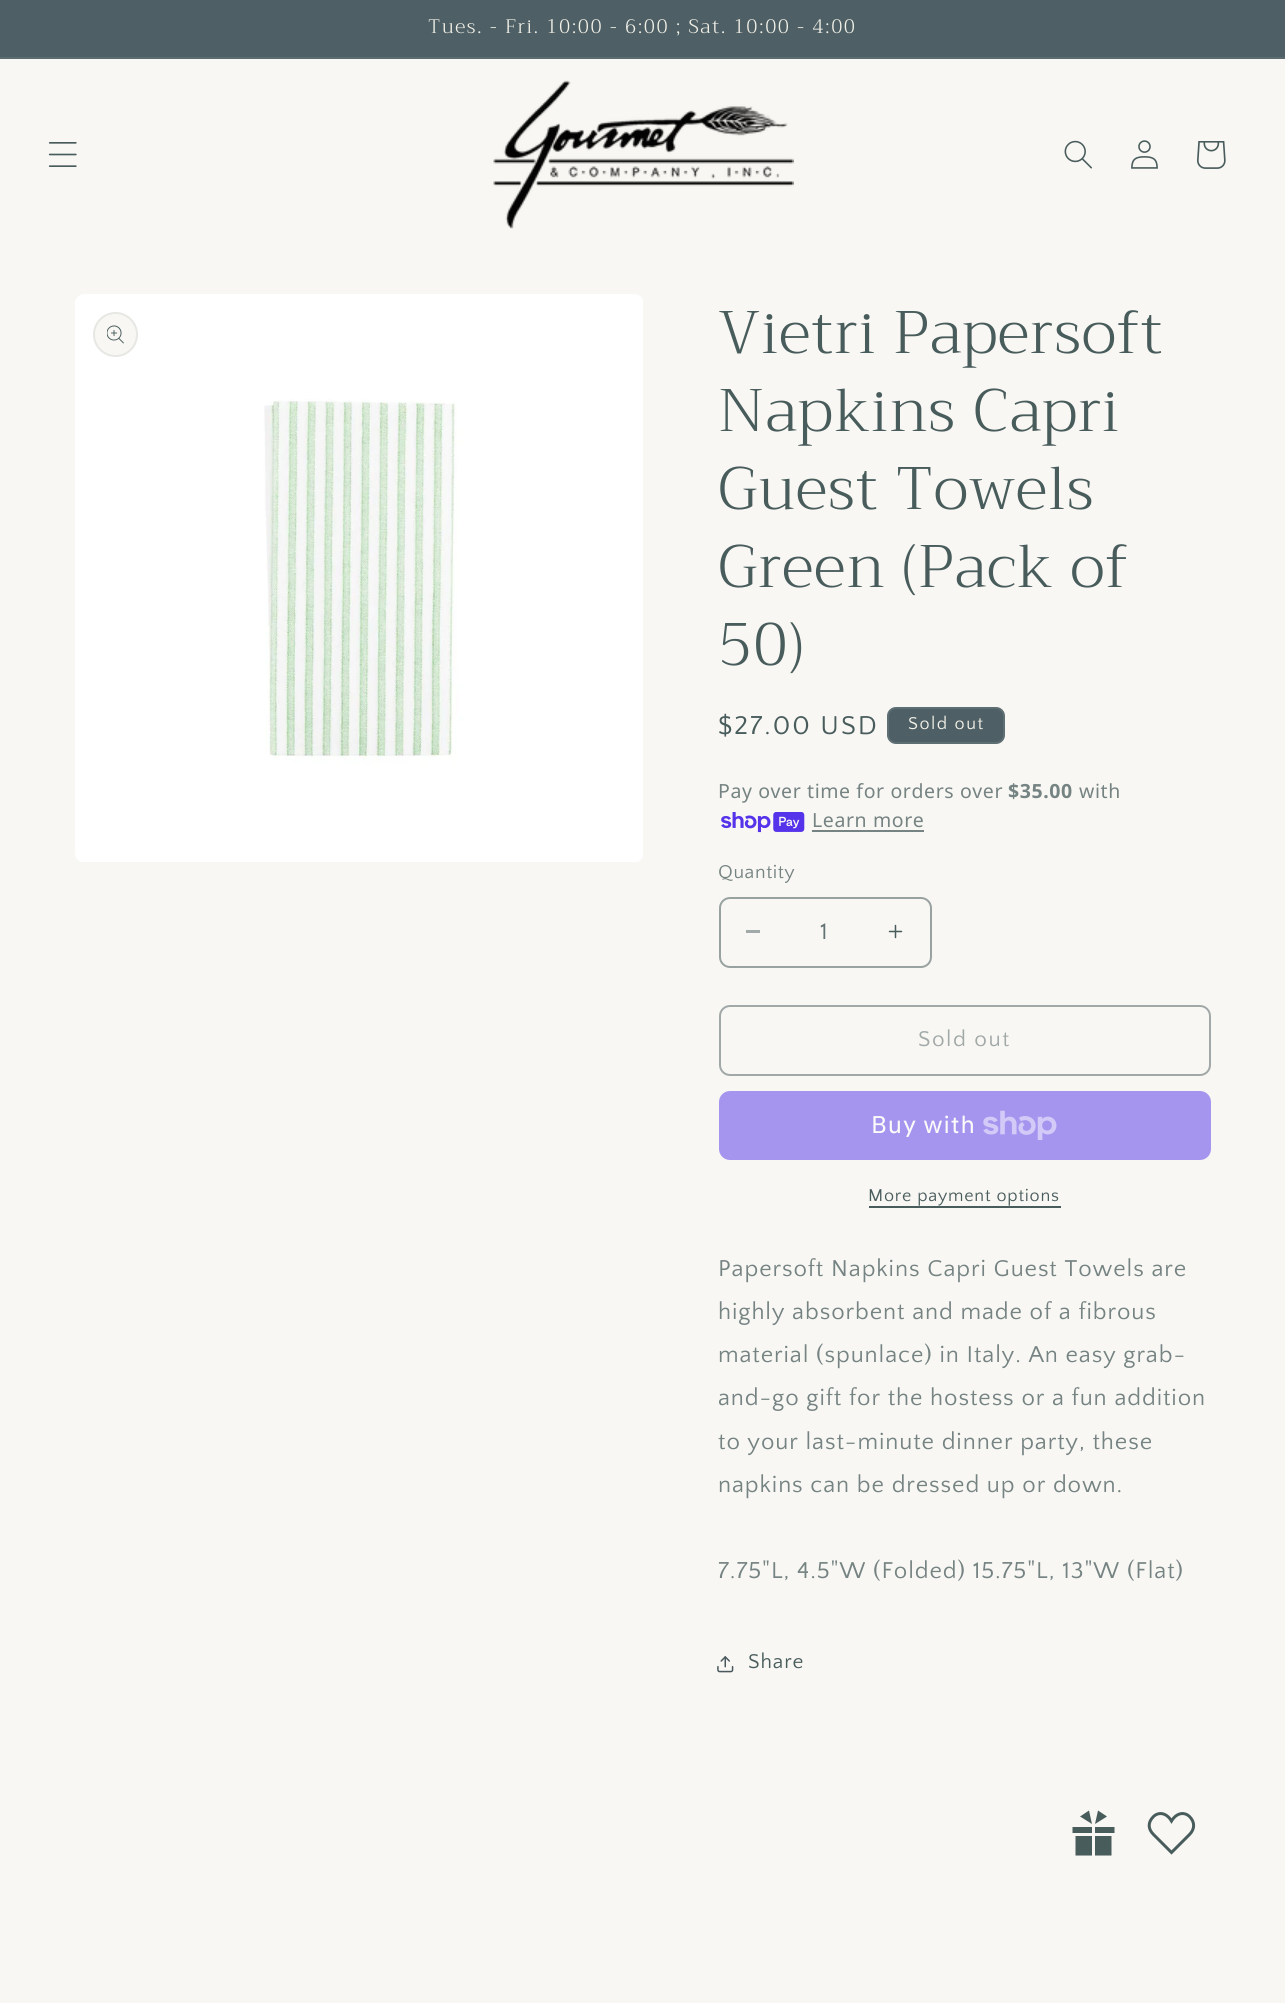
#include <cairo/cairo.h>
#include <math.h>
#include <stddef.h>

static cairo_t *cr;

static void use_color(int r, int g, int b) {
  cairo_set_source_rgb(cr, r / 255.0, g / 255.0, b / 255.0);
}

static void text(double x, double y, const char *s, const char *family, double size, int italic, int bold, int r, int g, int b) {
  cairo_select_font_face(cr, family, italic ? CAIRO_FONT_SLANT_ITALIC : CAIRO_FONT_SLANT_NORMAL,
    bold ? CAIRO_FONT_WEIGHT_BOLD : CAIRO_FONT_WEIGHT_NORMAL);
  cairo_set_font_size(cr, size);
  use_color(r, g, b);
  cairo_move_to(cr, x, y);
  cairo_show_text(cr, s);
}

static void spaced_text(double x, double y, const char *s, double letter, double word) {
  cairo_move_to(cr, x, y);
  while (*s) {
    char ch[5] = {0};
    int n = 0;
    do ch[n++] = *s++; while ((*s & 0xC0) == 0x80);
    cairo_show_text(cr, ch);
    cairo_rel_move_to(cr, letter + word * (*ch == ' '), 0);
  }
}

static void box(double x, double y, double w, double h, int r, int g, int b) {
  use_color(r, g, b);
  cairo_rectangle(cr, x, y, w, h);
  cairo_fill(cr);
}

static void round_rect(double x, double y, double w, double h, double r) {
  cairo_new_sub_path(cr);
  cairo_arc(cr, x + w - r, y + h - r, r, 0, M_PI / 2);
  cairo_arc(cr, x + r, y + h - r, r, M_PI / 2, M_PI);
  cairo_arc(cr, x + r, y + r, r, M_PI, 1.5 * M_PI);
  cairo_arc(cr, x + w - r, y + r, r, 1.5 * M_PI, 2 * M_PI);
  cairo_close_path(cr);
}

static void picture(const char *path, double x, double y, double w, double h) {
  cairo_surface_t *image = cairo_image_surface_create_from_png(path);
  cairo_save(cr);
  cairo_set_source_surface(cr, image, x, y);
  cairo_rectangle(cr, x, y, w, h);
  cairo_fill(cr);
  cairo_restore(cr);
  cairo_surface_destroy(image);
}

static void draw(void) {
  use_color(248, 247, 243);
  cairo_paint(cr);
  box(0, 0, 1285, 57, 78, 96, 102);
  box(0, 57, 1285, 2, 91, 108, 112);
  picture("img_01.png", 48, 142, 29, 25);
  picture("img_02.png", 493, 80, 301, 149);
  picture("img_03.png", 1064, 140, 28, 29);
  picture("img_04.png", 1131, 140, 27, 29);
  picture("img_05.png", 1197, 141, 29, 28);
  picture("img_06.png", 75, 294, 568, 568);
  use_color(248, 247, 243);
  cairo_arc(cr, 115.5, 334.5, 22.5, 0, 2 * M_PI);
  cairo_fill(cr);
  cairo_arc(cr, 115.5, 334.5, 21.5, 0, 2 * M_PI);
  cairo_set_source_rgba(cr, 0.286, 0.361, 0.361, 0.1);
  cairo_stroke(cr);
  picture("img_07.png", 107, 325, 17, 19);
  use_color(78, 96, 102);
  round_rect(887, 707, 118, 37, 9);
  cairo_fill(cr);
  round_rect(888, 708, 116, 35, 8);
  cairo_set_source_rgba(cr, 0.949, 0.941, 0.906, 0.1);
  cairo_stroke(cr);
  picture("img_08.png", 721, 812, 84, 21);
  box(812, 830, 112, 2, 117, 131, 130);
  box(746, 930, 14, 3, 161, 170, 168);
  picture("img_09.png", 888, 924, 15, 15);
  round_rect(720, 898, 211, 69, 10);
  use_color(152, 162, 160);
  cairo_stroke(cr);
  round_rect(720, 1006, 490, 69, 10);
  use_color(161, 168, 168);
  cairo_stroke(cr);
  use_color(166, 149, 239);
  round_rect(719, 1091, 492, 69, 11);
  cairo_fill(cr);
  picture("img_10.png", 983, 1110, 74, 30);
  box(869, 1206, 192, 2, 73, 92, 92);
  picture("img_11.png", 717, 1656, 17, 17);
  picture("img_12.png", 1072, 1810, 43, 46);
  cairo_new_path(cr);
  cairo_move_to(cr, 1189.5, 1816.5);
  cairo_curve_to(cr, 1185, 1812, 1177, 1812, 1171.5, 1821);
  cairo_curve_to(cr, 1166, 1812, 1158, 1812, 1153.5, 1816.5);
  cairo_curve_to(cr, 1147.5, 1822.5, 1148, 1829, 1153.5, 1834.5);
  cairo_line_to(cr, 1171.5, 1852.5);
  cairo_line_to(cr, 1189.5, 1834.5);
  cairo_curve_to(cr, 1195, 1829, 1195, 1822, 1189.5, 1816.5);
  cairo_close_path(cr);
  cairo_set_line_width(cr, 3);
  cairo_stroke(cr);
  cairo_select_font_face(cr, "Trirong Light", CAIRO_FONT_SLANT_NORMAL, CAIRO_FONT_WEIGHT_NORMAL);
  cairo_set_font_size(cr, 19.5);
  use_color(242, 240, 231);
  spaced_text(428, 33, "Tues. - Fri. 10:00 - 6:00 ; Sat. 10:00 - 4:00", 1.5, 0);
  cairo_set_font_size(cr, 60);
  use_color(73, 92, 92);
  spaced_text(718, 353, "Vietri Papersoft", 0.9, 0);
  spaced_text(718, 431, "Napkins Capri", 0.9, 0);
  spaced_text(718, 509, "Guest Towels", 0.9, 0);
  spaced_text(718, 587, "Green (Pack of", 0.9, 0);
  spaced_text(718, 665, "50)", 0.9, 0);
  cairo_select_font_face(cr, "Quattrocento Sans", CAIRO_FONT_SLANT_NORMAL, CAIRO_FONT_WEIGHT_NORMAL);
  cairo_set_font_size(cr, 27);
  spaced_text(718, 734, "$27.00 USD", 2, 0);
  cairo_set_font_size(cr, 18);
  use_color(242, 240, 231);
  spaced_text(908, 729, "Sold out", 1.5, 0);
  cairo_select_font_face(cr, "Noto Sans", CAIRO_FONT_SLANT_NORMAL, CAIRO_FONT_WEIGHT_NORMAL);
  cairo_set_font_size(cr, 19.5);
  use_color(117, 131, 130);
  spaced_text(718, 798, "Pay over time for orders over", 0.6, 0);
  cairo_select_font_face(cr, "Noto Sans", CAIRO_FONT_SLANT_NORMAL, CAIRO_FONT_WEIGHT_BOLD);
  spaced_text(1008, 798, "$35.00", 0.6, 0);
  cairo_select_font_face(cr, "Noto Sans", CAIRO_FONT_SLANT_NORMAL, CAIRO_FONT_WEIGHT_NORMAL);
  spaced_text(1079, 798, "with", 0.6, 0);
  spaced_text(812, 827, "Learn more", 0.6, 0);
  cairo_select_font_face(cr, "Quattrocento Sans", CAIRO_FONT_SLANT_NORMAL, CAIRO_FONT_WEIGHT_NORMAL);
  spaced_text(718, 878, "Quantity", 0.6, 0);
  text(820, 939, "1", "Quattrocento Sans", 24, 0, 0, 99, 115, 115);
  cairo_set_font_size(cr, 22.5);
  use_color(161, 168, 168);
  spaced_text(918, 1046, "Sold out", 1.5, 0);
  cairo_select_font_face(cr, "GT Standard", CAIRO_FONT_SLANT_NORMAL, CAIRO_FONT_WEIGHT_NORMAL);
  cairo_set_font_size(cr, 24);
  use_color(252, 251, 249);
  spaced_text(871, 1133, "Buy with", 0.9, 0);
  cairo_select_font_face(cr, "Quattrocento Sans", CAIRO_FONT_SLANT_NORMAL, CAIRO_FONT_WEIGHT_NORMAL);
  cairo_set_font_size(cr, 18);
  use_color(73, 92, 92);
  spaced_text(868, 1201, "More payment options", 0.75, 0);
  cairo_set_font_size(cr, 24);
  use_color(117, 131, 130);
  spaced_text(718, 1276, "Papersoft Napkins Capri Guest Towels are", 0.9, 0);
  spaced_text(718, 1319, "highly absorbent and made of a fibrous", 0.9, 0);
  spaced_text(718, 1362, "material (spunlace) in Italy. An easy grab-", 0.9, 0);
  spaced_text(718, 1405, "and-go gift for the hostess or a fun addition", 0.9, 0);
  spaced_text(718, 1449, "to your last-minute dinner party, these", 0.9, 0);
  spaced_text(718, 1492, "napkins can be dressed up or down.", 0.9, 0);
  spaced_text(718, 1578, "7.75\"L, 4.5\"W (Folded) 15.75\"L, 13\"W (Flat)", 0.9, 0);
  cairo_set_font_size(cr, 21);
  use_color(73, 92, 92);
  spaced_text(748, 1668, "Share", 0.9, 0);
}

int main(void) {
  cairo_surface_t *surface = cairo_image_surface_create(CAIRO_FORMAT_RGB24, 1285, 2003);
  cr = cairo_create(surface);
  cairo_font_options_t *options = cairo_font_options_create();
  cairo_font_options_set_hint_metrics(options, CAIRO_HINT_METRICS_OFF);
  cairo_font_options_set_hint_style(options, CAIRO_HINT_STYLE_NONE);
  cairo_set_font_options(cr, options);
  cairo_set_miter_limit(cr, 4);
  draw();
  cairo_surface_write_to_png(surface, "out.png");
  cairo_font_options_destroy(options);
  cairo_destroy(cr);
  cairo_surface_destroy(surface);
  return 0;
}
